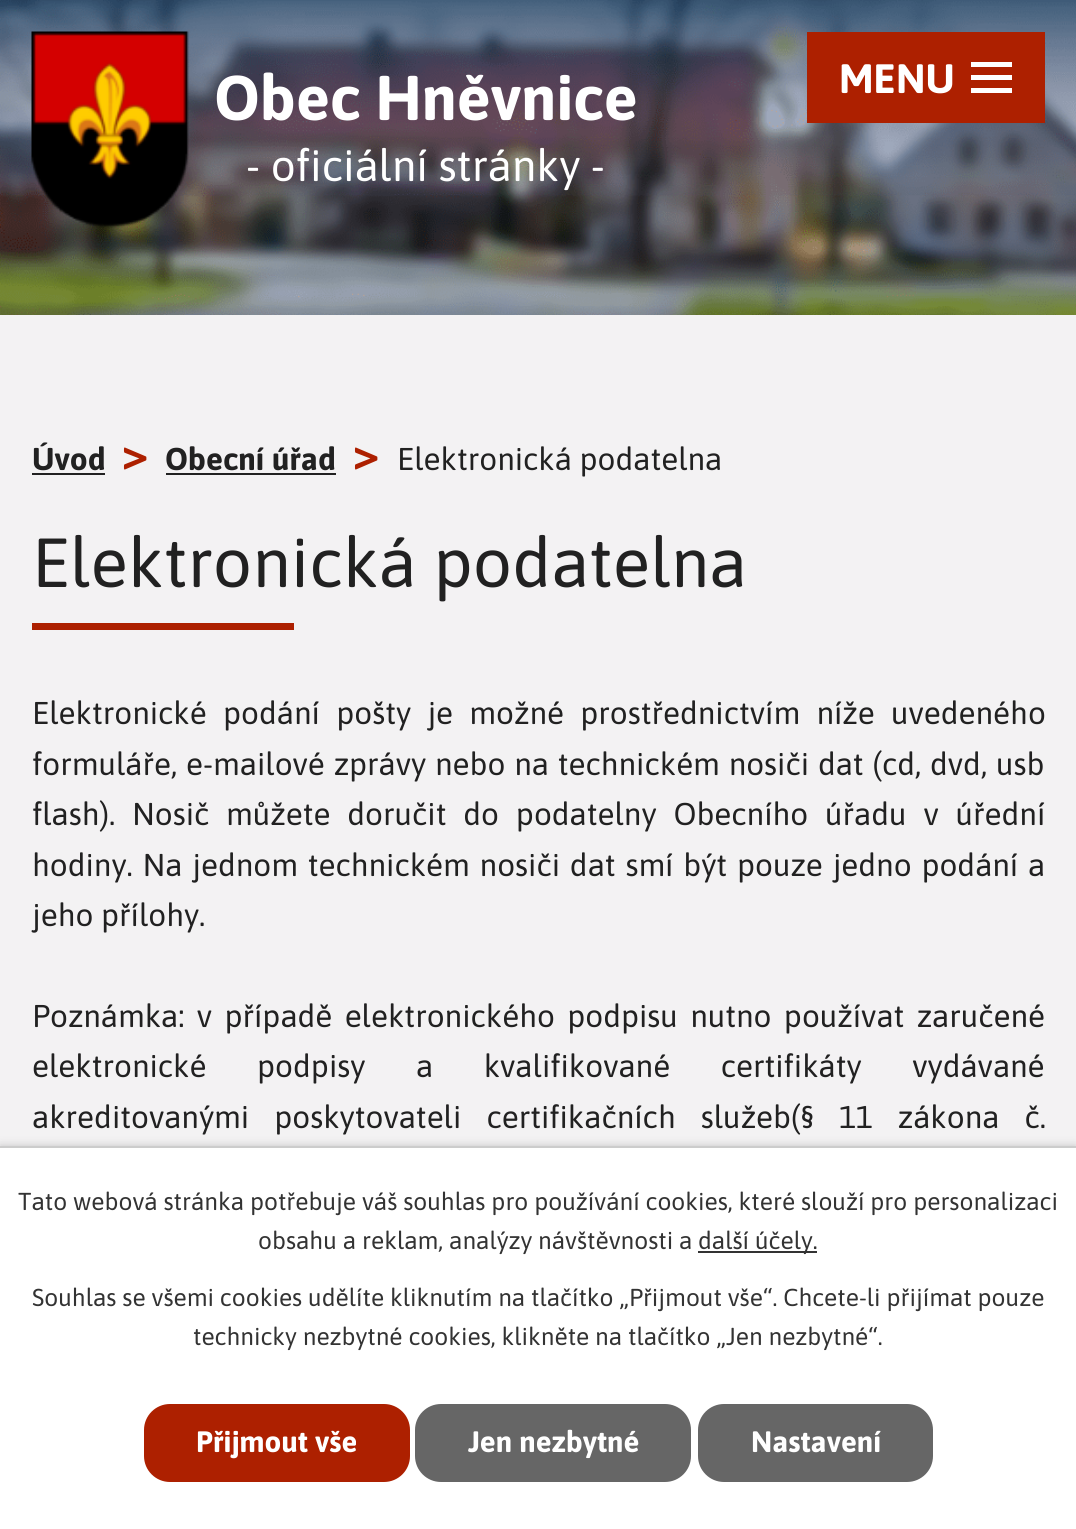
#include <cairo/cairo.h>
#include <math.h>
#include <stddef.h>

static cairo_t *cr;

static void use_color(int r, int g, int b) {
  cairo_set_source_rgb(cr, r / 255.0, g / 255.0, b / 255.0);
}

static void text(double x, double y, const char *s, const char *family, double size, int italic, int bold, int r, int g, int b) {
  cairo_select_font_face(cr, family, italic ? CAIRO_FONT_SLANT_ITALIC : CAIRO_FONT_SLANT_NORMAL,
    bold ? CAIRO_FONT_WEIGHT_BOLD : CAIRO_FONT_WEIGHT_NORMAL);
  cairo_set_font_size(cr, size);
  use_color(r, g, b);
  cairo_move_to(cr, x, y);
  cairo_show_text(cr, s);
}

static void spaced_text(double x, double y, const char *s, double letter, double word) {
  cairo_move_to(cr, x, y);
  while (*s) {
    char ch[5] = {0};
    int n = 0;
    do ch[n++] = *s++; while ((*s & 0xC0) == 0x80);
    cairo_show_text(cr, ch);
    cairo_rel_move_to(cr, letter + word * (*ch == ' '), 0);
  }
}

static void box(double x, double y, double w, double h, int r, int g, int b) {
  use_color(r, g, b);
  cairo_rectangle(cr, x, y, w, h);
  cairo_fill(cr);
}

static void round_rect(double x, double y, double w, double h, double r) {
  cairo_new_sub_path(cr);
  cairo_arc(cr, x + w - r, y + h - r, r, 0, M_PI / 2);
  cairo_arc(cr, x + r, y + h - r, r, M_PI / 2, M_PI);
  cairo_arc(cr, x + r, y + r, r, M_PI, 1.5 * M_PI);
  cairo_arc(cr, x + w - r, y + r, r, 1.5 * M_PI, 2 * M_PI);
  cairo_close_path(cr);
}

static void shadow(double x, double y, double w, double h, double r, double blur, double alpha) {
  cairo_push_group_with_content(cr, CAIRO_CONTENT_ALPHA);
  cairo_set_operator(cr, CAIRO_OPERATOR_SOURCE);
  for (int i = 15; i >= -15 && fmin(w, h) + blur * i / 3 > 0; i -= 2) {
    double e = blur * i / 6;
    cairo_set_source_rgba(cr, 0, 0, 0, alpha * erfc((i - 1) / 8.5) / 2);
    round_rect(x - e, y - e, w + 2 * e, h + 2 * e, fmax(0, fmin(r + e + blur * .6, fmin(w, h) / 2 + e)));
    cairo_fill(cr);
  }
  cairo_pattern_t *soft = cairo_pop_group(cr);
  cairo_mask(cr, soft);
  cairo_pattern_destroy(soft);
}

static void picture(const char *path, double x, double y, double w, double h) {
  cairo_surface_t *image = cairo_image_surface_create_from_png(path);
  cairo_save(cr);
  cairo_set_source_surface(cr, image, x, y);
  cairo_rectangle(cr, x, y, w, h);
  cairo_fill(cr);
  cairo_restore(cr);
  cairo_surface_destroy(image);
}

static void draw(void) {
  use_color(255, 255, 255);
  cairo_paint(cr);
  picture("img_01.png", 0, 0, 1076, 315);
  picture("img_02.png", 31, 31, 158, 197);
  box(807, 32, 238, 91, 173, 32, 0);
  use_color(255, 255, 255);
  cairo_new_path(cr);
  cairo_move_to(cr, 971, 93);
  cairo_line_to(cr, 971, 88);
  cairo_line_to(cr, 1012, 88);
  cairo_line_to(cr, 1012, 93);
  cairo_close_path(cr);
  cairo_move_to(cr, 971, 62);
  cairo_line_to(cr, 1012, 62);
  cairo_line_to(cr, 1012, 67);
  cairo_line_to(cr, 971, 67);
  cairo_close_path(cr);
  cairo_move_to(cr, 971, 80);
  cairo_line_to(cr, 971, 75);
  cairo_line_to(cr, 1012, 75);
  cairo_line_to(cr, 1012, 80);
  cairo_close_path(cr);
  cairo_fill(cr);
  box(0, 315, 1076, 831, 243, 242, 243);
  box(32, 473, 73, 2, 33, 33, 33);
  box(166, 473, 170, 2, 33, 33, 33);
  box(32, 623, 262, 7, 173, 32, 0);
  use_color(0, 0, 0);
  shadow(0, 1146, 1076, 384, 0, 4.5, 0.2);
  box(0, 1148, 1076, 381, 255, 255, 255);
  box(0, 1146, 1076, 2, 204, 204, 204);
  box(698, 1251, 119, 2, 51, 51, 51);
  use_color(173, 32, 0);
  round_rect(144, 1404, 266, 78, 26);
  cairo_fill(cr);
  use_color(102, 102, 102);
  round_rect(415, 1404, 276, 78, 26);
  cairo_fill(cr);
  round_rect(698, 1404, 235, 78, 26);
  cairo_fill(cr);
  text(214, 120, "Obec Hněvnice", "Asap", 63, 0, 1, 255, 255, 255);
  text(246, 181, "- oficiální stránky -", "Asap", 44, 0, 0, 255, 255, 255);
  text(839, 93, "MENU", "Asap", 41, 0, 1, 255, 255, 255);
  text(32, 470, "Úvod", "Asap", 31.5, 0, 1, 33, 33, 33);
  text(122, 470, ">", "Asap", 47, 0, 1, 173, 32, 0);
  text(165, 470, "Obecní úřad", "Asap", 31.5, 0, 1, 33, 33, 33);
  text(353, 470, ">", "Asap", 47, 0, 1, 173, 32, 0);
  text(397, 470, "Elektronická podatelna", "Asap", 31.5, 0, 0, 33, 33, 33);
  text(32, 587, "Elektronická podatelna", "Asap", 69.25, 0, 0, 33, 33, 33);
  cairo_set_font_size(cr, 31.5);
  spaced_text(32, 724, "Elektronické podání pošty je možné prostřednictvím níže uvedeného", 0, 8.75);
  spaced_text(32, 775, "formuláře, e-mailové zprávy nebo na technickém nosiči dat (cd, dvd, usb", 0, 1.25);
  spaced_text(32, 825, "flash). Nosič můžete doručit do podatelny Obecního úřadu v úřední", 0, 9.25);
  spaced_text(32, 876, "hodiny. Na jednom technickém nosiči dat smí být pouze jedno podání a", 0, 2.25);
  text(32, 926, "jeho přílohy.", "Asap", 31.5, 0, 0, 33, 33, 33);
  spaced_text(32, 1027, "Poznámka: v případě elektronického podpisu nutno používat zaručené", 0, 4.75);
  spaced_text(32, 1077, "elektronické podpisy a kvalifikované certifikáty vydávané", 0, 43);
  spaced_text(32, 1128, "akreditovanými poskytovateli certifikačních služeb(§ 11 zákona č.", 0, 17.5);
  text(18, 1210, "Tato webová stránka potřebuje váš souhlas pro používání cookies, které slouží pro personalizaci", "Asap", 24.5, 0, 0, 51, 51, 51);
  text(258, 1249, "obsahu a reklam, analýzy návštěvnosti a", "Asap", 24.5, 0, 0, 51, 51, 51);
  text(698, 1249, "další účely.", "Asap", 24.5, 0, 0, 51, 51, 51);
  text(32, 1306, "Souhlas se všemi cookies udělíte kliknutím na tlačítko „Přijmout vše“. Chcete-li přijímat pouze", "Asap", 24.5, 0, 0, 51, 51, 51);
  text(193, 1345, "technicky nezbytné cookies, klikněte na tlačítko „Jen nezbytné“.", "Asap", 24.5, 0, 0, 51, 51, 51);
  text(196, 1452, "Přijmout vše", "Asap", 29.5, 0, 1, 255, 255, 255);
  text(468, 1452, "Jen nezbytné", "Asap", 29.5, 0, 1, 255, 255, 255);
  text(751, 1452, "Nastavení", "Asap", 29.5, 0, 1, 255, 255, 255);
}

int main(void) {
  cairo_surface_t *surface = cairo_image_surface_create(CAIRO_FORMAT_RGB24, 1076, 1529);
  cr = cairo_create(surface);
  cairo_font_options_t *options = cairo_font_options_create();
  cairo_font_options_set_hint_metrics(options, CAIRO_HINT_METRICS_OFF);
  cairo_font_options_set_hint_style(options, CAIRO_HINT_STYLE_NONE);
  cairo_set_font_options(cr, options);
  cairo_set_miter_limit(cr, 4);
  draw();
  cairo_surface_write_to_png(surface, "out.png");
  cairo_font_options_destroy(options);
  cairo_destroy(cr);
  cairo_surface_destroy(surface);
  return 0;
}
